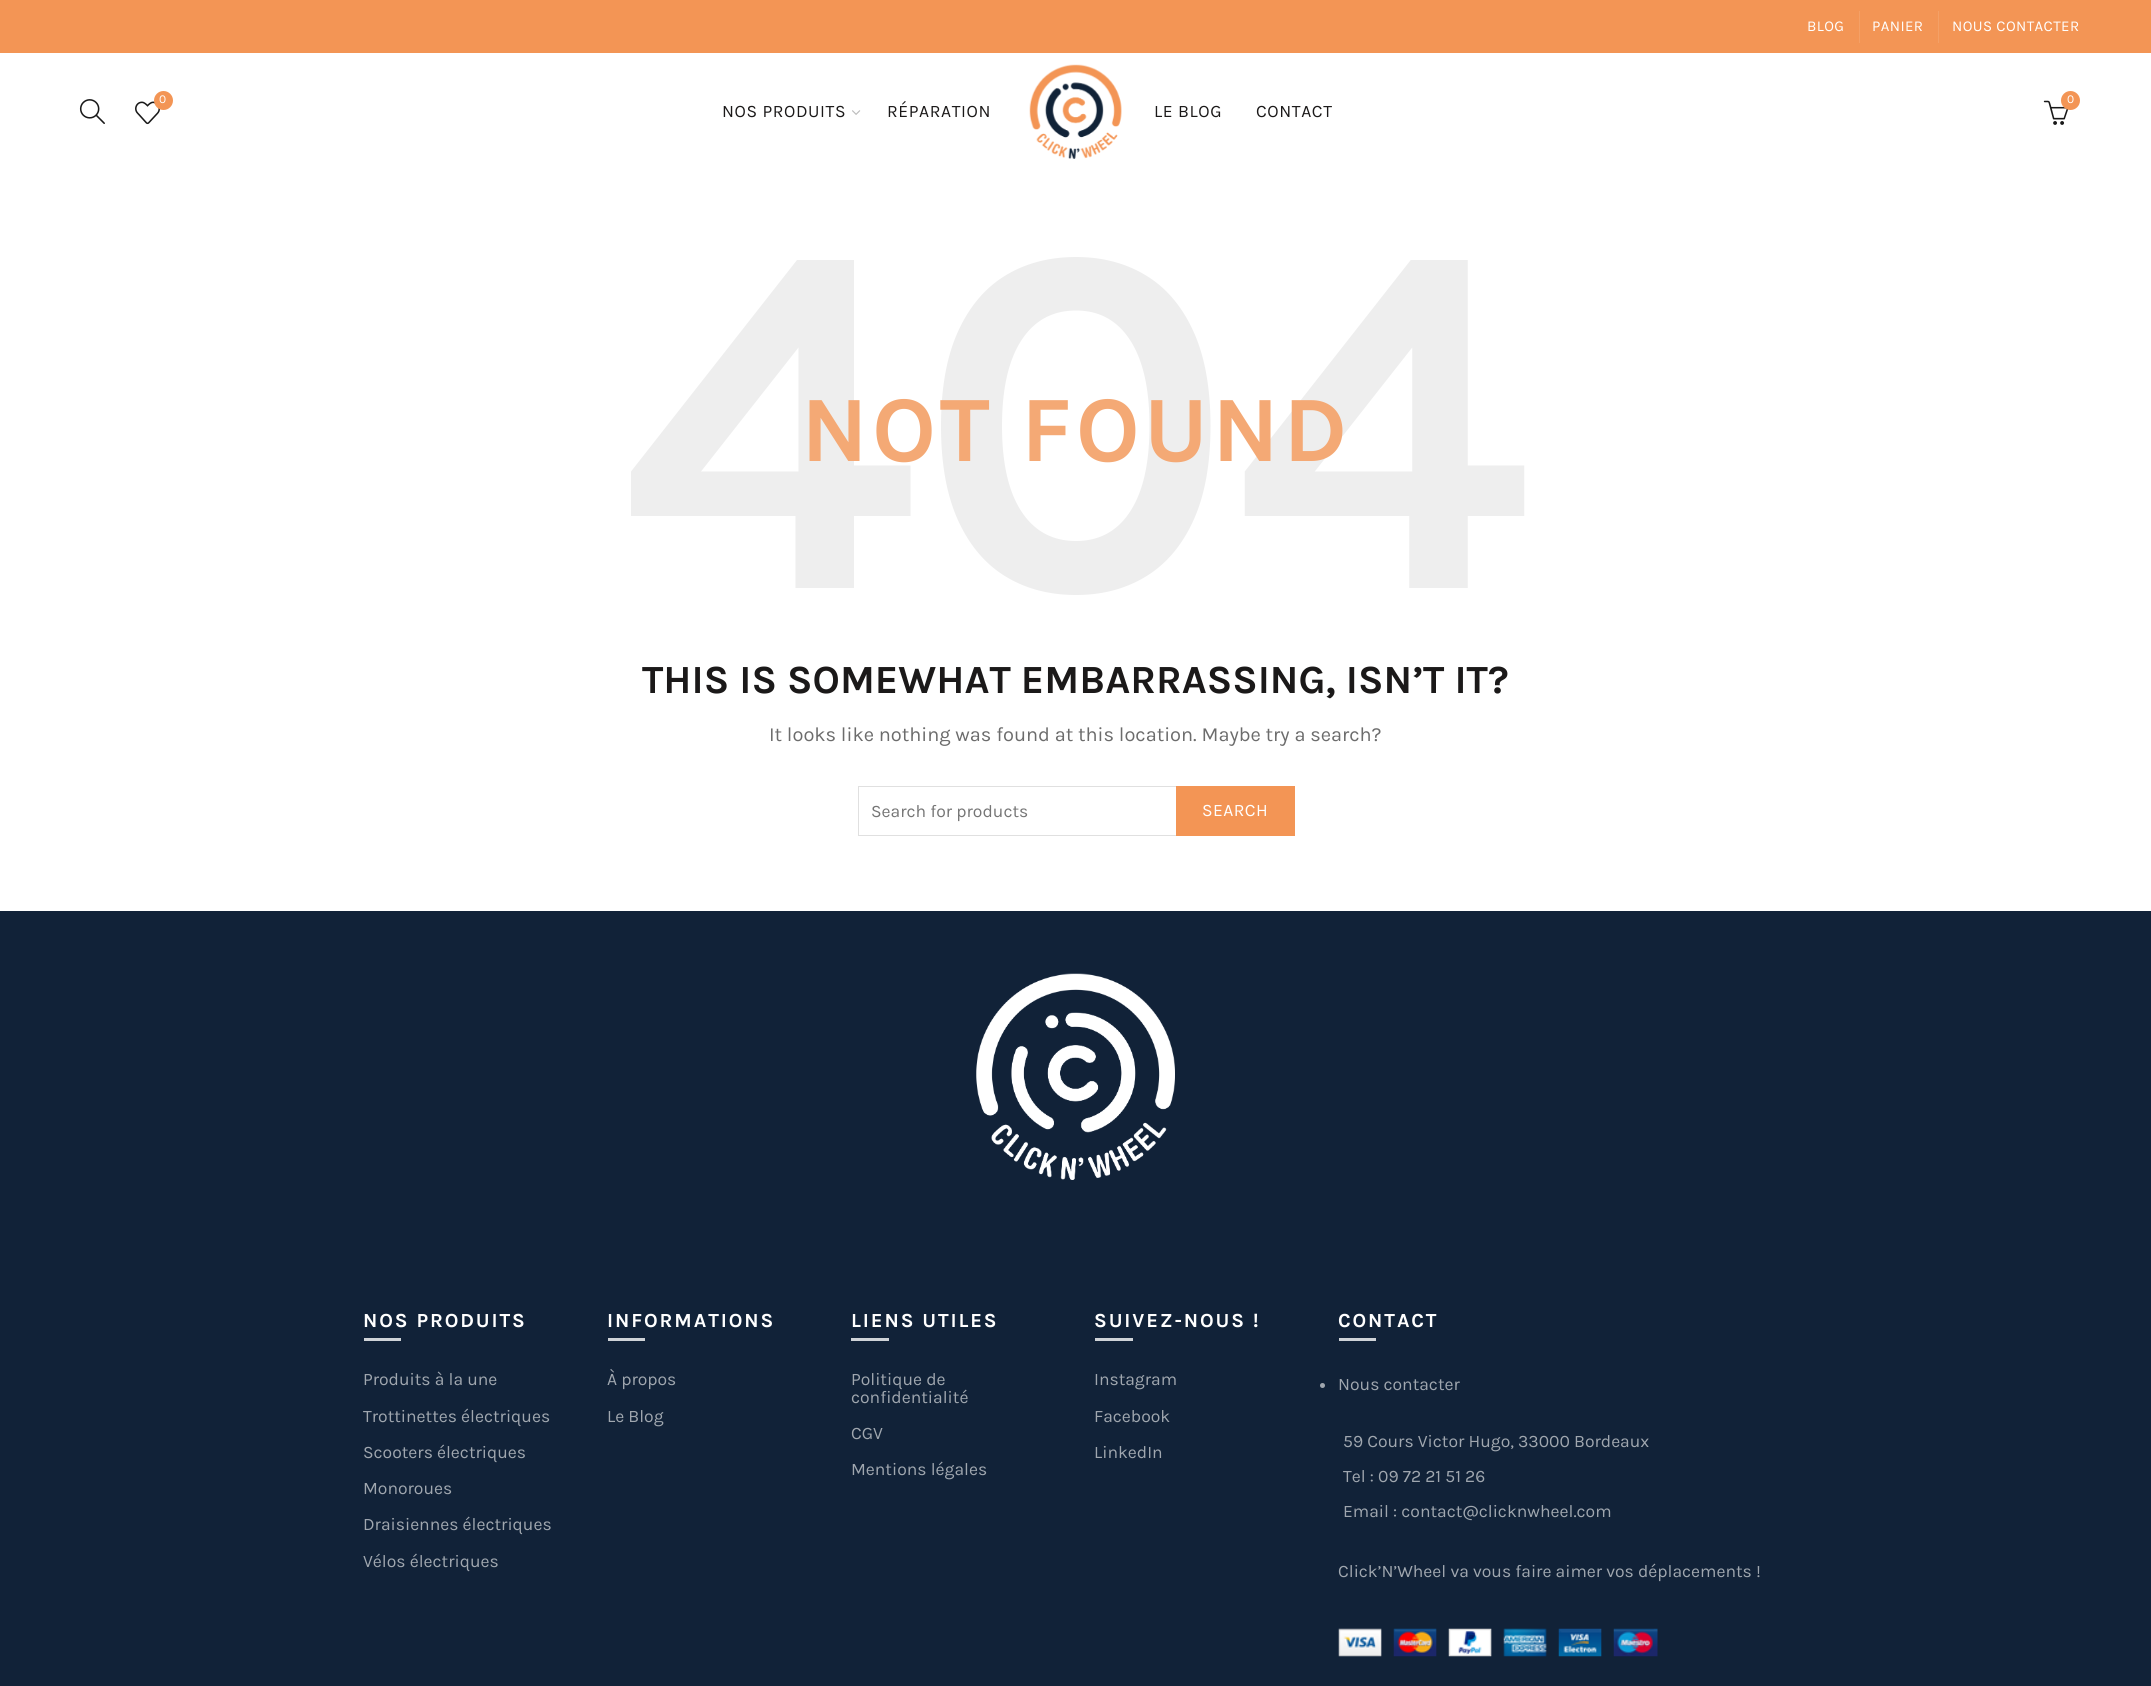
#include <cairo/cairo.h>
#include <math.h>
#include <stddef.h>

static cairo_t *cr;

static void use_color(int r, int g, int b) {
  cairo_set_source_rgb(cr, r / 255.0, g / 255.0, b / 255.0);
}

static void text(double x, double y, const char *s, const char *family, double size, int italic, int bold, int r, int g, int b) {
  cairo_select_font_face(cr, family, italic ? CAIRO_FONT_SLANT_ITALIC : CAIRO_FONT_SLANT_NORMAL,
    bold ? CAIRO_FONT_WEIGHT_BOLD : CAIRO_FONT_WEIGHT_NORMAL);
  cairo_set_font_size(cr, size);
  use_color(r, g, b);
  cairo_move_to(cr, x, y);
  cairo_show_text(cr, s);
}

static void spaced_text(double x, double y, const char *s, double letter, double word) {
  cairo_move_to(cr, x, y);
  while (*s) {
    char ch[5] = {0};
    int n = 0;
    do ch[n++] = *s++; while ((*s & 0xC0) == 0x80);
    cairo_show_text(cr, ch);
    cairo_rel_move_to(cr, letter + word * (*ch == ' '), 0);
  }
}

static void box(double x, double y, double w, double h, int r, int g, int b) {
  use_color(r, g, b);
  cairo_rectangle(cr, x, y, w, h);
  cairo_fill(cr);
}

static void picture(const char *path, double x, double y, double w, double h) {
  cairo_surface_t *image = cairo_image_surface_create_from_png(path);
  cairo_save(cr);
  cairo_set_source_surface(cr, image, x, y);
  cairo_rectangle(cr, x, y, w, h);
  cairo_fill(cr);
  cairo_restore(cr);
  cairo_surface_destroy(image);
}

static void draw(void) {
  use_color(255, 255, 255);
  cairo_paint(cr);
  box(0, 0, 2151, 53, 243, 149, 85);
  box(1859, 11, 1, 32, 244, 160, 102);
  box(1938, 11, 1, 32, 244, 160, 102);
  picture("img_01.png", 79, 99, 26, 25);
  picture("img_02.png", 135, 101, 25, 24);
  use_color(243, 149, 85);
  cairo_arc(cr, 163.5, 100.5, 9.5, 0, 2 * M_PI);
  cairo_fill(cr);
  picture("img_03.png", 1029, 64, 93, 95);
  picture("img_04.png", 2043, 100, 26, 25);
  cairo_arc(cr, 2070.5, 100.5, 9.5, 0, 2 * M_PI);
  cairo_fill(cr);
  picture("img_05.png", 852, 110, 9, 5);
  cairo_rectangle(cr, 858.5, 786.5, 436, 49);
  use_color(224, 224, 224);
  cairo_set_line_width(cr, 1);
  cairo_stroke(cr);
  box(1176, 786, 119, 50, 243, 149, 85);
  box(0, 911, 2151, 775, 17, 34, 56);
  picture("img_06.png", 976, 973, 199, 207);
  box(364, 1338, 37, 3, 207, 211, 215);
  box(608, 1338, 37, 3, 207, 211, 215);
  box(851, 1338, 38, 3, 207, 211, 215);
  box(1095, 1338, 38, 3, 207, 211, 215);
  box(1339, 1338, 37, 3, 207, 211, 215);
  use_color(160, 167, 175);
  cairo_arc(cr, 1322.5, 1385.5, 2.5, 0, 2 * M_PI);
  cairo_fill(cr);
  picture("img_07.png", 1338, 1628, 320, 29);
  cairo_select_font_face(cr, "Karla", CAIRO_FONT_SLANT_NORMAL, CAIRO_FONT_WEIGHT_NORMAL);
  cairo_set_font_size(cr, 15);
  use_color(255, 255, 255);
  spaced_text(1807, 31, "BLOG", 0.4, 0);
  spaced_text(1872, 31, "PANIER", 0.4, 0);
  spaced_text(1952, 31, "NOUS CONTACTER", 0.4, 0);
  text(159, 103, "0", "Karla", 12, 0, 0, 255, 255, 255);
  text(2067, 103, "0", "Karla", 12, 0, 0, 255, 255, 255);
  cairo_set_font_size(cr, 17.5);
  use_color(27, 25, 25);
  spaced_text(722, 117, "NOS PRODUITS", 0.6, 0);
  spaced_text(887, 117, "RÉPARATION", 0.6, 0);
  spaced_text(1154, 117, "LE BLOG", 0.6, 0);
  spaced_text(1256, 117, "CONTACT", 0.6, 0);
  text(620, 588, "404", "Karla", 500, 0, 1, 238, 238, 238);
  cairo_set_font_size(cr, 93.75);
  use_color(244, 169, 117);
  spaced_text(801, 461, "NOT FOUND", 3.75, 0);
  text(642, 693, "THIS IS SOMEWHAT EMBARRASSING, ISN’T IT?", "Karla", 40, 0, 1, 27, 25, 25);
  text(769, 741, "It looks like nothing was found at this location. Maybe try a search?", "Karla", 20, 0, 0, 108, 108, 108);
  text(871, 817, "Search for products", "Karla", 17.5, 0, 0, 117, 117, 117);
  use_color(255, 255, 255);
  spaced_text(1202, 816, "SEARCH", 0.4, 0);
  cairo_select_font_face(cr, "Karla", CAIRO_FONT_SLANT_NORMAL, CAIRO_FONT_WEIGHT_BOLD);
  cairo_set_font_size(cr, 20);
  spaced_text(363, 1327, "NOS PRODUITS", 1.9, 0);
  text(363, 1385, "Produits à la une", "Karla", 17.5, 0, 0, 160, 167, 175);
  text(363, 1422, "Trottinettes électriques", "Karla", 17.5, 0, 0, 160, 167, 175);
  text(363, 1458, "Scooters électriques", "Karla", 17.5, 0, 0, 160, 167, 175);
  text(363, 1494, "Monoroues", "Karla", 17.5, 0, 0, 160, 167, 175);
  text(363, 1530, "Draisiennes électriques", "Karla", 17.5, 0, 0, 160, 167, 175);
  text(363, 1567, "Vélos électriques", "Karla", 17.5, 0, 0, 160, 167, 175);
  cairo_select_font_face(cr, "Karla", CAIRO_FONT_SLANT_NORMAL, CAIRO_FONT_WEIGHT_BOLD);
  cairo_set_font_size(cr, 20);
  use_color(255, 255, 255);
  spaced_text(607, 1327, "INFORMATIONS", 1.9, 0);
  text(607, 1385, "À propos", "Karla", 17.5, 0, 0, 160, 167, 175);
  text(607, 1422, "Le Blog", "Karla", 17.5, 0, 0, 160, 167, 175);
  cairo_select_font_face(cr, "Karla", CAIRO_FONT_SLANT_NORMAL, CAIRO_FONT_WEIGHT_BOLD);
  cairo_set_font_size(cr, 20);
  use_color(255, 255, 255);
  spaced_text(851, 1327, "LIENS UTILES", 1.9, 0);
  text(851, 1385, "Politique de", "Karla", 17.5, 0, 0, 160, 167, 175);
  text(851, 1403, "confidentialité", "Karla", 17.5, 0, 0, 160, 167, 175);
  text(851, 1439, "CGV", "Karla", 17.5, 0, 0, 160, 167, 175);
  text(851, 1475, "Mentions légales", "Karla", 17.5, 0, 0, 160, 167, 175);
  cairo_select_font_face(cr, "Karla", CAIRO_FONT_SLANT_NORMAL, CAIRO_FONT_WEIGHT_BOLD);
  cairo_set_font_size(cr, 20);
  use_color(255, 255, 255);
  spaced_text(1094, 1327, "SUIVEZ-NOUS !", 1.9, 0);
  text(1094, 1385, "Instagram", "Karla", 17.5, 0, 0, 160, 167, 175);
  text(1094, 1422, "Facebook", "Karla", 17.5, 0, 0, 160, 167, 175);
  text(1094, 1458, "LinkedIn", "Karla", 17.5, 0, 0, 160, 167, 175);
  cairo_select_font_face(cr, "Karla", CAIRO_FONT_SLANT_NORMAL, CAIRO_FONT_WEIGHT_BOLD);
  cairo_set_font_size(cr, 20);
  use_color(255, 255, 255);
  spaced_text(1338, 1327, "CONTACT", 1.9, 0);
  text(1338, 1390, "Nous contacter", "Karla", 17.5, 0, 0, 160, 167, 175);
  text(1343, 1447, "59 Cours Victor Hugo, 33000 Bordeaux", "Karla", 17.5, 0, 0, 160, 167, 175);
  text(1343, 1482, "Tel : 09 72 21 51 26", "Karla", 17.5, 0, 0, 160, 167, 175);
  text(1343, 1517, "Email : contact@clicknwheel.com", "Karla", 17.5, 0, 0, 160, 167, 175);
  text(1338, 1577, "Click’N’Wheel va vous faire aimer vos déplacements !", "Karla", 17.5, 0, 0, 160, 167, 175);
}

int main(void) {
  cairo_surface_t *surface = cairo_image_surface_create(CAIRO_FORMAT_RGB24, 2151, 1686);
  cr = cairo_create(surface);
  cairo_font_options_t *options = cairo_font_options_create();
  cairo_font_options_set_hint_metrics(options, CAIRO_HINT_METRICS_OFF);
  cairo_font_options_set_hint_style(options, CAIRO_HINT_STYLE_NONE);
  cairo_set_font_options(cr, options);
  cairo_set_miter_limit(cr, 4);
  draw();
  cairo_surface_write_to_png(surface, "out.png");
  cairo_font_options_destroy(options);
  cairo_destroy(cr);
  cairo_surface_destroy(surface);
  return 0;
}
